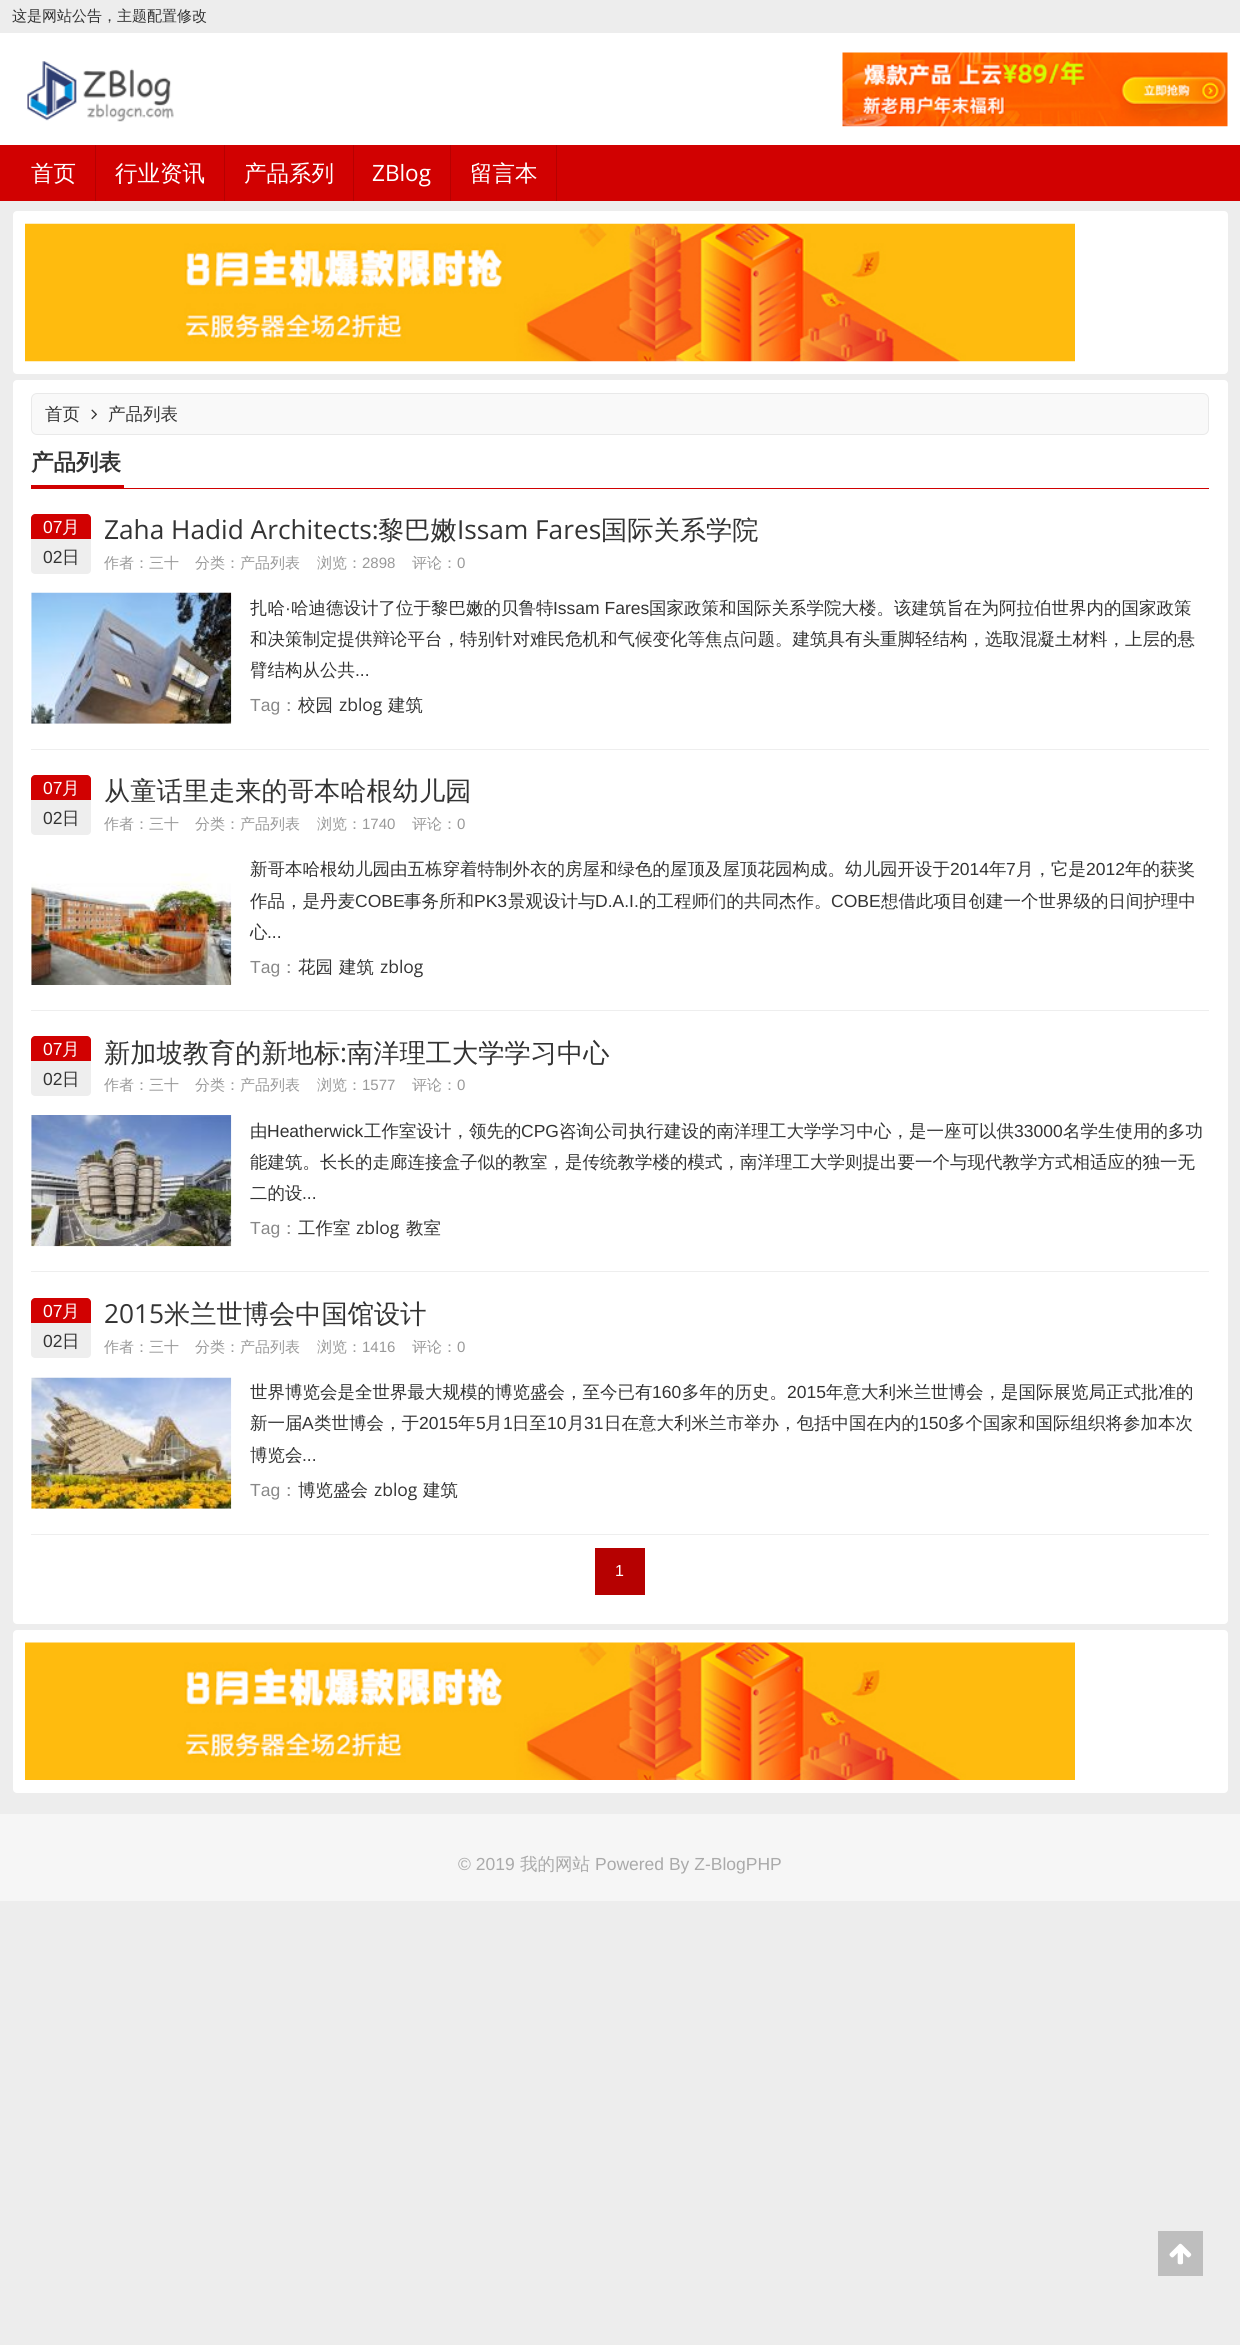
#include <cairo/cairo.h>
#include <math.h>
#include <stddef.h>

static cairo_t *cr;

static void use_color(int r, int g, int b) {
  cairo_set_source_rgb(cr, r / 255.0, g / 255.0, b / 255.0);
}

static void text(double x, double y, const char *s, const char *family, double size, int italic, int bold, int r, int g, int b) {
  cairo_select_font_face(cr, family, italic ? CAIRO_FONT_SLANT_ITALIC : CAIRO_FONT_SLANT_NORMAL,
    bold ? CAIRO_FONT_WEIGHT_BOLD : CAIRO_FONT_WEIGHT_NORMAL);
  cairo_set_font_size(cr, size);
  use_color(r, g, b);
  cairo_move_to(cr, x, y);
  cairo_show_text(cr, s);
}

static void box(double x, double y, double w, double h, int r, int g, int b) {
  use_color(r, g, b);
  cairo_rectangle(cr, x, y, w, h);
  cairo_fill(cr);
}

static void round_rect(double x, double y, double w, double h, double r) {
  cairo_new_sub_path(cr);
  cairo_arc(cr, x + w - r, y + h - r, r, 0, M_PI / 2);
  cairo_arc(cr, x + r, y + h - r, r, M_PI / 2, M_PI);
  cairo_arc(cr, x + r, y + r, r, M_PI, 1.5 * M_PI);
  cairo_arc(cr, x + w - r, y + r, r, 1.5 * M_PI, 2 * M_PI);
  cairo_close_path(cr);
}

static void picture(const char *path, double x, double y, double w, double h) {
  cairo_surface_t *image = cairo_image_surface_create_from_png(path);
  cairo_save(cr);
  cairo_set_source_surface(cr, image, x, y);
  cairo_rectangle(cr, x, y, w, h);
  cairo_fill(cr);
  cairo_restore(cr);
  cairo_surface_destroy(image);
}

static void draw(void) {
  use_color(237, 237, 237);
  cairo_paint(cr);
  box(0, 33, 1240, 112, 255, 255, 255);
  picture("img_01.png", 27, 61, 147, 61);
  picture("img_02.png", 842, 52, 386, 75);
  box(0, 145, 1240, 56, 209, 1, 1);
  box(95, 145, 1, 56, 182, 1, 1);
  box(224, 145, 1, 56, 182, 1, 1);
  box(353, 145, 1, 56, 182, 1, 1);
  box(450, 145, 1, 56, 182, 1, 1);
  box(556, 145, 1, 56, 182, 1, 1);
  use_color(255, 255, 255);
  round_rect(13, 211, 1215, 163, 4);
  cairo_fill(cr);
  picture("img_03.png", 25, 223, 1050, 139);
  round_rect(13, 380, 1215, 1244, 4);
  cairo_fill(cr);
  use_color(249, 249, 249);
  round_rect(31.5, 393.5, 1177, 41, 5.5);
  cairo_fill_preserve(cr);
  use_color(233, 233, 233);
  cairo_set_line_width(cr, 1);
  cairo_stroke(cr);
  picture("img_04.png", 91, 409, 6, 11);
  box(31, 485, 93, 4, 209, 1, 1);
  box(124, 488, 1085, 1, 209, 1, 1);
  box(31, 749, 1178, 1, 238, 238, 238);
  round_rect(31, 514, 60, 60, 4);
  cairo_fill(cr);
  use_color(209, 1, 1);
  cairo_new_path(cr);
  cairo_move_to(cr, 35, 514);
  cairo_line_to(cr, 87, 514);
  cairo_curve_to(cr, 89, 514, 91, 516, 91, 518);
  cairo_line_to(cr, 91, 539);
  cairo_line_to(cr, 31, 539);
  cairo_line_to(cr, 31, 518);
  cairo_curve_to(cr, 31, 516, 33, 514, 35, 514);
  cairo_close_path(cr);
  cairo_fill(cr);
  picture("img_05.png", 31, 592, 201, 132);
  box(31, 1010, 1178, 1, 238, 238, 238);
  round_rect(31, 775, 60, 60, 4);
  cairo_fill(cr);
  use_color(209, 1, 1);
  cairo_new_path(cr);
  cairo_move_to(cr, 35, 775);
  cairo_line_to(cr, 87, 775);
  cairo_curve_to(cr, 89, 775, 91, 777, 91, 779);
  cairo_line_to(cr, 91, 800);
  cairo_line_to(cr, 31, 800);
  cairo_line_to(cr, 31, 779);
  cairo_curve_to(cr, 31, 777, 33, 775, 35, 775);
  cairo_close_path(cr);
  cairo_fill(cr);
  picture("img_06.png", 31, 873, 201, 112);
  box(31, 1271, 1178, 1, 238, 238, 238);
  round_rect(31, 1036, 60, 60, 4);
  cairo_fill(cr);
  use_color(209, 1, 1);
  cairo_new_path(cr);
  cairo_move_to(cr, 35, 1036);
  cairo_line_to(cr, 87, 1036);
  cairo_curve_to(cr, 89, 1036, 91, 1038, 91, 1040);
  cairo_line_to(cr, 91, 1061);
  cairo_line_to(cr, 31, 1061);
  cairo_line_to(cr, 31, 1040);
  cairo_curve_to(cr, 31, 1038, 33, 1036, 35, 1036);
  cairo_close_path(cr);
  cairo_fill(cr);
  picture("img_07.png", 31, 1115, 201, 132);
  box(31, 1534, 1178, 1, 238, 238, 238);
  round_rect(31, 1298, 60, 60, 4);
  cairo_fill(cr);
  use_color(209, 1, 1);
  cairo_new_path(cr);
  cairo_move_to(cr, 35, 1298);
  cairo_line_to(cr, 87, 1298);
  cairo_curve_to(cr, 89, 1298, 91, 1300, 91, 1302);
  cairo_line_to(cr, 91, 1323);
  cairo_line_to(cr, 31, 1323);
  cairo_line_to(cr, 31, 1302);
  cairo_curve_to(cr, 31, 1300, 33, 1298, 35, 1298);
  cairo_close_path(cr);
  cairo_fill(cr);
  picture("img_08.png", 31, 1377, 201, 132);
  box(595, 1548, 50, 47, 182, 1, 1);
  use_color(255, 255, 255);
  round_rect(13, 1630, 1215, 163, 4);
  cairo_fill(cr);
  picture("img_09.png", 25, 1642, 1050, 138);
  box(0, 1814, 1240, 87, 246, 246, 246);
  box(1158, 2231, 45, 45, 190, 190, 190);
  picture("img_10.png", 1169, 2243, 23, 22);
  text(12, 21, "这是网站公告，主题配置修改", "WenQuanYi Zen Hei Medium", 15, 0, 0, 51, 51, 51);
  text(31, 181, "首页", "WenQuanYi Zen Hei Medium", 22.5, 0, 0, 255, 255, 255);
  text(115, 181, "行业资讯", "WenQuanYi Zen Hei Medium", 22.5, 0, 0, 255, 255, 255);
  text(244, 181, "产品系列", "WenQuanYi Zen Hei Medium", 22.5, 0, 0, 255, 255, 255);
  text(372, 181, "ZBlog", "Open Sans", 22.5, 0, 0, 255, 255, 255);
  text(470, 181, "留言本", "WenQuanYi Zen Hei Medium", 22.5, 0, 0, 255, 255, 255);
  text(45, 420, "首页", "WenQuanYi Zen Hei Medium", 17.5, 0, 0, 51, 51, 51);
  text(108, 420, "产品列表", "WenQuanYi Zen Hei Medium", 17.5, 0, 0, 51, 51, 51);
  text(31, 470, "产品列表", "WenQuanYi Zen Hei", 22.5, 0, 1, 51, 51, 51);
  text(43, 533, "07", "Liberation Sans", 17.5, 0, 0, 255, 255, 255);
  text(62, 533, "月", "WenQuanYi Zen Hei Medium", 17.5, 0, 0, 255, 255, 255);
  text(43, 563, "02", "Liberation Sans", 17.5, 0, 0, 51, 51, 51);
  text(62, 563, "日", "WenQuanYi Zen Hei Medium", 17.5, 0, 0, 51, 51, 51);
  text(104, 539, "Zaha Hadid Architects:", "Open Sans", 26.25, 0, 0, 51, 51, 51);
  text(378, 539, "黎巴嫩", "WenQuanYi Zen Hei Medium", 26.25, 0, 0, 51, 51, 51);
  text(457, 539, "Issam Fares", "Open Sans", 26.25, 0, 0, 51, 51, 51);
  text(601, 539, "国际关系学院", "WenQuanYi Zen Hei Medium", 26.25, 0, 0, 51, 51, 51);
  text(104, 568, "作者：三十", "WenQuanYi Zen Hei Medium", 15, 0, 0, 153, 153, 153);
  text(195, 568, "分类：产品列表", "WenQuanYi Zen Hei Medium", 15, 0, 0, 153, 153, 153);
  text(317, 568, "浏览：", "WenQuanYi Zen Hei Medium", 15, 0, 0, 153, 153, 153);
  text(362, 568, "2898", "Liberation Sans", 15, 0, 0, 153, 153, 153);
  text(412, 568, "评论：", "WenQuanYi Zen Hei Medium", 15, 0, 0, 153, 153, 153);
  text(457, 568, "0", "Liberation Sans", 15, 0, 0, 153, 153, 153);
  text(250, 614, "扎哈", "WenQuanYi Zen Hei Medium", 17.5, 0, 0, 51, 51, 51);
  text(285, 614, "·", "Liberation Sans", 17.5, 0, 0, 51, 51, 51);
  text(291, 614, "哈迪德设计了位于黎巴嫩的贝鲁特", "WenQuanYi Zen Hei Medium", 17.5, 0, 0, 51, 51, 51);
  text(553, 614, "Issam Fares", "Liberation Sans", 17.5, 0, 0, 51, 51, 51);
  text(649, 614, "国家政策和国际关系学院大楼。该建筑旨在为阿拉伯世界内的国家政策", "WenQuanYi Zen Hei Medium", 17.5, 0, 0, 51, 51, 51);
  text(250, 645, "和决策制定提供辩论平台，特别针对难民危机和气候变化等焦点问题。建筑具有头重脚轻结构，选取混凝土材料，上层的悬", "WenQuanYi Zen Hei Medium", 17.5, 0, 0, 51, 51, 51);
  text(250, 676, "臂结构从公共", "WenQuanYi Zen Hei Medium", 17.5, 0, 0, 51, 51, 51);
  text(355, 676, "...", "Liberation Sans", 17.5, 0, 0, 51, 51, 51);
  text(250, 711, "Tag", "Liberation Sans", 17.5, 0, 0, 136, 136, 136);
  text(280, 711, "：", "WenQuanYi Zen Hei Medium", 17.5, 0, 0, 136, 136, 136);
  text(298, 711, "校园", "WenQuanYi Zen Hei Medium", 17.5, 0, 0, 51, 51, 51);
  text(339, 711, "zblog", "Open Sans", 17.5, 0, 0, 51, 51, 51);
  text(388, 711, "建筑", "WenQuanYi Zen Hei Medium", 17.5, 0, 0, 51, 51, 51);
  text(43, 794, "07", "Liberation Sans", 17.5, 0, 0, 255, 255, 255);
  text(62, 794, "月", "WenQuanYi Zen Hei Medium", 17.5, 0, 0, 255, 255, 255);
  text(43, 824, "02", "Liberation Sans", 17.5, 0, 0, 51, 51, 51);
  text(62, 824, "日", "WenQuanYi Zen Hei Medium", 17.5, 0, 0, 51, 51, 51);
  text(104, 800, "从童话里走来的哥本哈根幼儿园", "WenQuanYi Zen Hei Medium", 26.25, 0, 0, 51, 51, 51);
  text(104, 829, "作者：三十", "WenQuanYi Zen Hei Medium", 15, 0, 0, 153, 153, 153);
  text(195, 829, "分类：产品列表", "WenQuanYi Zen Hei Medium", 15, 0, 0, 153, 153, 153);
  text(317, 829, "浏览：", "WenQuanYi Zen Hei Medium", 15, 0, 0, 153, 153, 153);
  text(362, 829, "1740", "Liberation Sans", 15, 0, 0, 153, 153, 153);
  text(412, 829, "评论：", "WenQuanYi Zen Hei Medium", 15, 0, 0, 153, 153, 153);
  text(457, 829, "0", "Liberation Sans", 15, 0, 0, 153, 153, 153);
  text(250, 875, "新哥本哈根幼儿园由五栋穿着特制外衣的房屋和绿色的屋顶及屋顶花园构成。幼儿园开设于", "WenQuanYi Zen Hei Medium", 17.5, 0, 0, 51, 51, 51);
  text(950, 875, "2014", "Liberation Sans", 17.5, 0, 0, 51, 51, 51);
  text(989, 875, "年", "WenQuanYi Zen Hei Medium", 17.5, 0, 0, 51, 51, 51);
  text(1006, 875, "7", "Liberation Sans", 17.5, 0, 0, 51, 51, 51);
  text(1016, 875, "月，它是", "WenQuanYi Zen Hei Medium", 17.5, 0, 0, 51, 51, 51);
  text(1086, 875, "2012", "Liberation Sans", 17.5, 0, 0, 51, 51, 51);
  text(1125, 875, "年的获奖", "WenQuanYi Zen Hei Medium", 17.5, 0, 0, 51, 51, 51);
  text(250, 907, "作品，是丹麦", "WenQuanYi Zen Hei Medium", 17.5, 0, 0, 51, 51, 51);
  text(355, 907, "COBE", "Liberation Sans", 17.5, 0, 0, 51, 51, 51);
  text(404, 907, "事务所和", "WenQuanYi Zen Hei Medium", 17.5, 0, 0, 51, 51, 51);
  text(474, 907, "PK3", "Liberation Sans", 17.5, 0, 0, 51, 51, 51);
  text(508, 907, "景观设计与", "WenQuanYi Zen Hei Medium", 17.5, 0, 0, 51, 51, 51);
  text(595, 907, "D.A.I.", "Liberation Sans", 17.5, 0, 0, 51, 51, 51);
  text(639, 907, "的工程师们的共同杰作。", "WenQuanYi Zen Hei Medium", 17.5, 0, 0, 51, 51, 51);
  text(831, 907, "COBE", "Liberation Sans", 17.5, 0, 0, 51, 51, 51);
  text(881, 907, "想借此项目创建一个世界级的日间护理中", "WenQuanYi Zen Hei Medium", 17.5, 0, 0, 51, 51, 51);
  text(250, 938, "心", "WenQuanYi Zen Hei Medium", 17.5, 0, 0, 51, 51, 51);
  text(267, 938, "...", "Liberation Sans", 17.5, 0, 0, 51, 51, 51);
  text(250, 973, "Tag", "Liberation Sans", 17.5, 0, 0, 136, 136, 136);
  text(280, 973, "：", "WenQuanYi Zen Hei Medium", 17.5, 0, 0, 136, 136, 136);
  text(298, 973, "花园", "WenQuanYi Zen Hei Medium", 17.5, 0, 0, 51, 51, 51);
  text(339, 973, "建筑", "WenQuanYi Zen Hei Medium", 17.5, 0, 0, 51, 51, 51);
  text(380, 973, "zblog", "Open Sans", 17.5, 0, 0, 51, 51, 51);
  text(43, 1055, "07", "Liberation Sans", 17.5, 0, 0, 255, 255, 255);
  text(62, 1055, "月", "WenQuanYi Zen Hei Medium", 17.5, 0, 0, 255, 255, 255);
  text(43, 1085, "02", "Liberation Sans", 17.5, 0, 0, 51, 51, 51);
  text(62, 1085, "日", "WenQuanYi Zen Hei Medium", 17.5, 0, 0, 51, 51, 51);
  text(104, 1062, "新加坡教育的新地标", "WenQuanYi Zen Hei Medium", 26.25, 0, 0, 51, 51, 51);
  text(340, 1062, ":", "Open Sans", 26.25, 0, 0, 51, 51, 51);
  text(347, 1062, "南洋理工大学学习中心", "WenQuanYi Zen Hei Medium", 26.25, 0, 0, 51, 51, 51);
  text(104, 1090, "作者：三十", "WenQuanYi Zen Hei Medium", 15, 0, 0, 153, 153, 153);
  text(195, 1090, "分类：产品列表", "WenQuanYi Zen Hei Medium", 15, 0, 0, 153, 153, 153);
  text(317, 1090, "浏览：", "WenQuanYi Zen Hei Medium", 15, 0, 0, 153, 153, 153);
  text(362, 1090, "1577", "Liberation Sans", 15, 0, 0, 153, 153, 153);
  text(412, 1090, "评论：", "WenQuanYi Zen Hei Medium", 15, 0, 0, 153, 153, 153);
  text(457, 1090, "0", "Liberation Sans", 15, 0, 0, 153, 153, 153);
  text(250, 1137, "由", "WenQuanYi Zen Hei Medium", 17.5, 0, 0, 51, 51, 51);
  text(267, 1137, "Heatherwick", "Liberation Sans", 17.5, 0, 0, 51, 51, 51);
  text(364, 1137, "工作室设计，领先的", "WenQuanYi Zen Hei Medium", 17.5, 0, 0, 51, 51, 51);
  text(521, 1137, "CPG", "Liberation Sans", 17.5, 0, 0, 51, 51, 51);
  text(559, 1137, "咨询公司执行建设的南洋理工大学学习中心，是一座可以供", "WenQuanYi Zen Hei Medium", 17.5, 0, 0, 51, 51, 51);
  text(1014, 1137, "33000", "Liberation Sans", 17.5, 0, 0, 51, 51, 51);
  text(1063, 1137, "名学生使用的多功", "WenQuanYi Zen Hei Medium", 17.5, 0, 0, 51, 51, 51);
  text(250, 1168, "能建筑。长长的走廊连接盒子似的教室，是传统教学楼的模式，南洋理工大学则提出要一个与现代教学方式相适应的独一无", "WenQuanYi Zen Hei Medium", 17.5, 0, 0, 51, 51, 51);
  text(250, 1199, "二的设", "WenQuanYi Zen Hei Medium", 17.5, 0, 0, 51, 51, 51);
  text(302, 1199, "...", "Liberation Sans", 17.5, 0, 0, 51, 51, 51);
  text(250, 1234, "Tag", "Liberation Sans", 17.5, 0, 0, 136, 136, 136);
  text(280, 1234, "：", "WenQuanYi Zen Hei Medium", 17.5, 0, 0, 136, 136, 136);
  text(298, 1234, "工作室", "WenQuanYi Zen Hei Medium", 17.5, 0, 0, 51, 51, 51);
  text(356, 1234, "zblog", "Open Sans", 17.5, 0, 0, 51, 51, 51);
  text(406, 1234, "教室", "WenQuanYi Zen Hei Medium", 17.5, 0, 0, 51, 51, 51);
  text(43, 1317, "07", "Liberation Sans", 17.5, 0, 0, 255, 255, 255);
  text(62, 1317, "月", "WenQuanYi Zen Hei Medium", 17.5, 0, 0, 255, 255, 255);
  text(43, 1347, "02", "Liberation Sans", 17.5, 0, 0, 51, 51, 51);
  text(62, 1347, "日", "WenQuanYi Zen Hei Medium", 17.5, 0, 0, 51, 51, 51);
  text(104, 1323, "2015", "Open Sans", 26.25, 0, 0, 51, 51, 51);
  text(164, 1323, "米兰世博会中国馆设计", "WenQuanYi Zen Hei Medium", 26.25, 0, 0, 51, 51, 51);
  text(104, 1352, "作者：三十", "WenQuanYi Zen Hei Medium", 15, 0, 0, 153, 153, 153);
  text(195, 1352, "分类：产品列表", "WenQuanYi Zen Hei Medium", 15, 0, 0, 153, 153, 153);
  text(317, 1352, "浏览：", "WenQuanYi Zen Hei Medium", 15, 0, 0, 153, 153, 153);
  text(362, 1352, "1416", "Liberation Sans", 15, 0, 0, 153, 153, 153);
  text(412, 1352, "评论：", "WenQuanYi Zen Hei Medium", 15, 0, 0, 153, 153, 153);
  text(457, 1352, "0", "Liberation Sans", 15, 0, 0, 153, 153, 153);
  text(250, 1398, "世界博览会是全世界最大规模的博览盛会，至今已有", "WenQuanYi Zen Hei Medium", 17.5, 0, 0, 51, 51, 51);
  text(652, 1398, "160", "Liberation Sans", 17.5, 0, 0, 51, 51, 51);
  text(682, 1398, "多年的历史。", "WenQuanYi Zen Hei Medium", 17.5, 0, 0, 51, 51, 51);
  text(787, 1398, "2015", "Liberation Sans", 17.5, 0, 0, 51, 51, 51);
  text(826, 1398, "年意大利米兰世博会，是国际展览局正式批准的", "WenQuanYi Zen Hei Medium", 17.5, 0, 0, 51, 51, 51);
  text(250, 1429, "新一届", "WenQuanYi Zen Hei Medium", 17.5, 0, 0, 51, 51, 51);
  text(302, 1429, "A", "Liberation Sans", 17.5, 0, 0, 51, 51, 51);
  text(314, 1429, "类世博会，于", "WenQuanYi Zen Hei Medium", 17.5, 0, 0, 51, 51, 51);
  text(419, 1429, "2015", "Liberation Sans", 17.5, 0, 0, 51, 51, 51);
  text(458, 1429, "年", "WenQuanYi Zen Hei Medium", 17.5, 0, 0, 51, 51, 51);
  text(476, 1429, "5", "Liberation Sans", 17.5, 0, 0, 51, 51, 51);
  text(485, 1429, "月", "WenQuanYi Zen Hei Medium", 17.5, 0, 0, 51, 51, 51);
  text(503, 1429, "1", "Liberation Sans", 17.5, 0, 0, 51, 51, 51);
  text(512, 1429, "日至", "WenQuanYi Zen Hei Medium", 17.5, 0, 0, 51, 51, 51);
  text(547, 1429, "10", "Liberation Sans", 17.5, 0, 0, 51, 51, 51);
  text(567, 1429, "月", "WenQuanYi Zen Hei Medium", 17.5, 0, 0, 51, 51, 51);
  text(584, 1429, "31", "Liberation Sans", 17.5, 0, 0, 51, 51, 51);
  text(604, 1429, "日在意大利米兰市举办，包括中国在内的", "WenQuanYi Zen Hei Medium", 17.5, 0, 0, 51, 51, 51);
  text(919, 1429, "150", "Liberation Sans", 17.5, 0, 0, 51, 51, 51);
  text(948, 1429, "多个国家和国际组织将参加本次", "WenQuanYi Zen Hei Medium", 17.5, 0, 0, 51, 51, 51);
  text(250, 1461, "博览会", "WenQuanYi Zen Hei Medium", 17.5, 0, 0, 51, 51, 51);
  text(302, 1461, "...", "Liberation Sans", 17.5, 0, 0, 51, 51, 51);
  text(250, 1496, "Tag", "Liberation Sans", 17.5, 0, 0, 136, 136, 136);
  text(280, 1496, "：", "WenQuanYi Zen Hei Medium", 17.5, 0, 0, 136, 136, 136);
  text(298, 1496, "博览盛会", "WenQuanYi Zen Hei Medium", 17.5, 0, 0, 51, 51, 51);
  text(374, 1496, "zblog", "Open Sans", 17.5, 0, 0, 51, 51, 51);
  text(423, 1496, "建筑", "WenQuanYi Zen Hei Medium", 17.5, 0, 0, 51, 51, 51);
  text(615, 1576, "1", "Liberation Sans", 16, 0, 0, 255, 255, 255);
  text(458, 1870, "© 2019", "Liberation Sans", 17.5, 0, 0, 170, 170, 170);
  text(520, 1870, "我的网站", "WenQuanYi Zen Hei Medium", 17.5, 0, 0, 170, 170, 170);
  text(595, 1870, "Powered By Z-BlogPHP", "Liberation Sans", 17.5, 0, 0, 170, 170, 170);
}

int main(void) {
  cairo_surface_t *surface = cairo_image_surface_create(CAIRO_FORMAT_RGB24, 1240, 2345);
  cr = cairo_create(surface);
  cairo_font_options_t *options = cairo_font_options_create();
  cairo_font_options_set_hint_metrics(options, CAIRO_HINT_METRICS_OFF);
  cairo_font_options_set_hint_style(options, CAIRO_HINT_STYLE_NONE);
  cairo_set_font_options(cr, options);
  cairo_set_miter_limit(cr, 4);
  draw();
  cairo_surface_write_to_png(surface, "out.png");
  cairo_font_options_destroy(options);
  cairo_destroy(cr);
  cairo_surface_destroy(surface);
  return 0;
}
